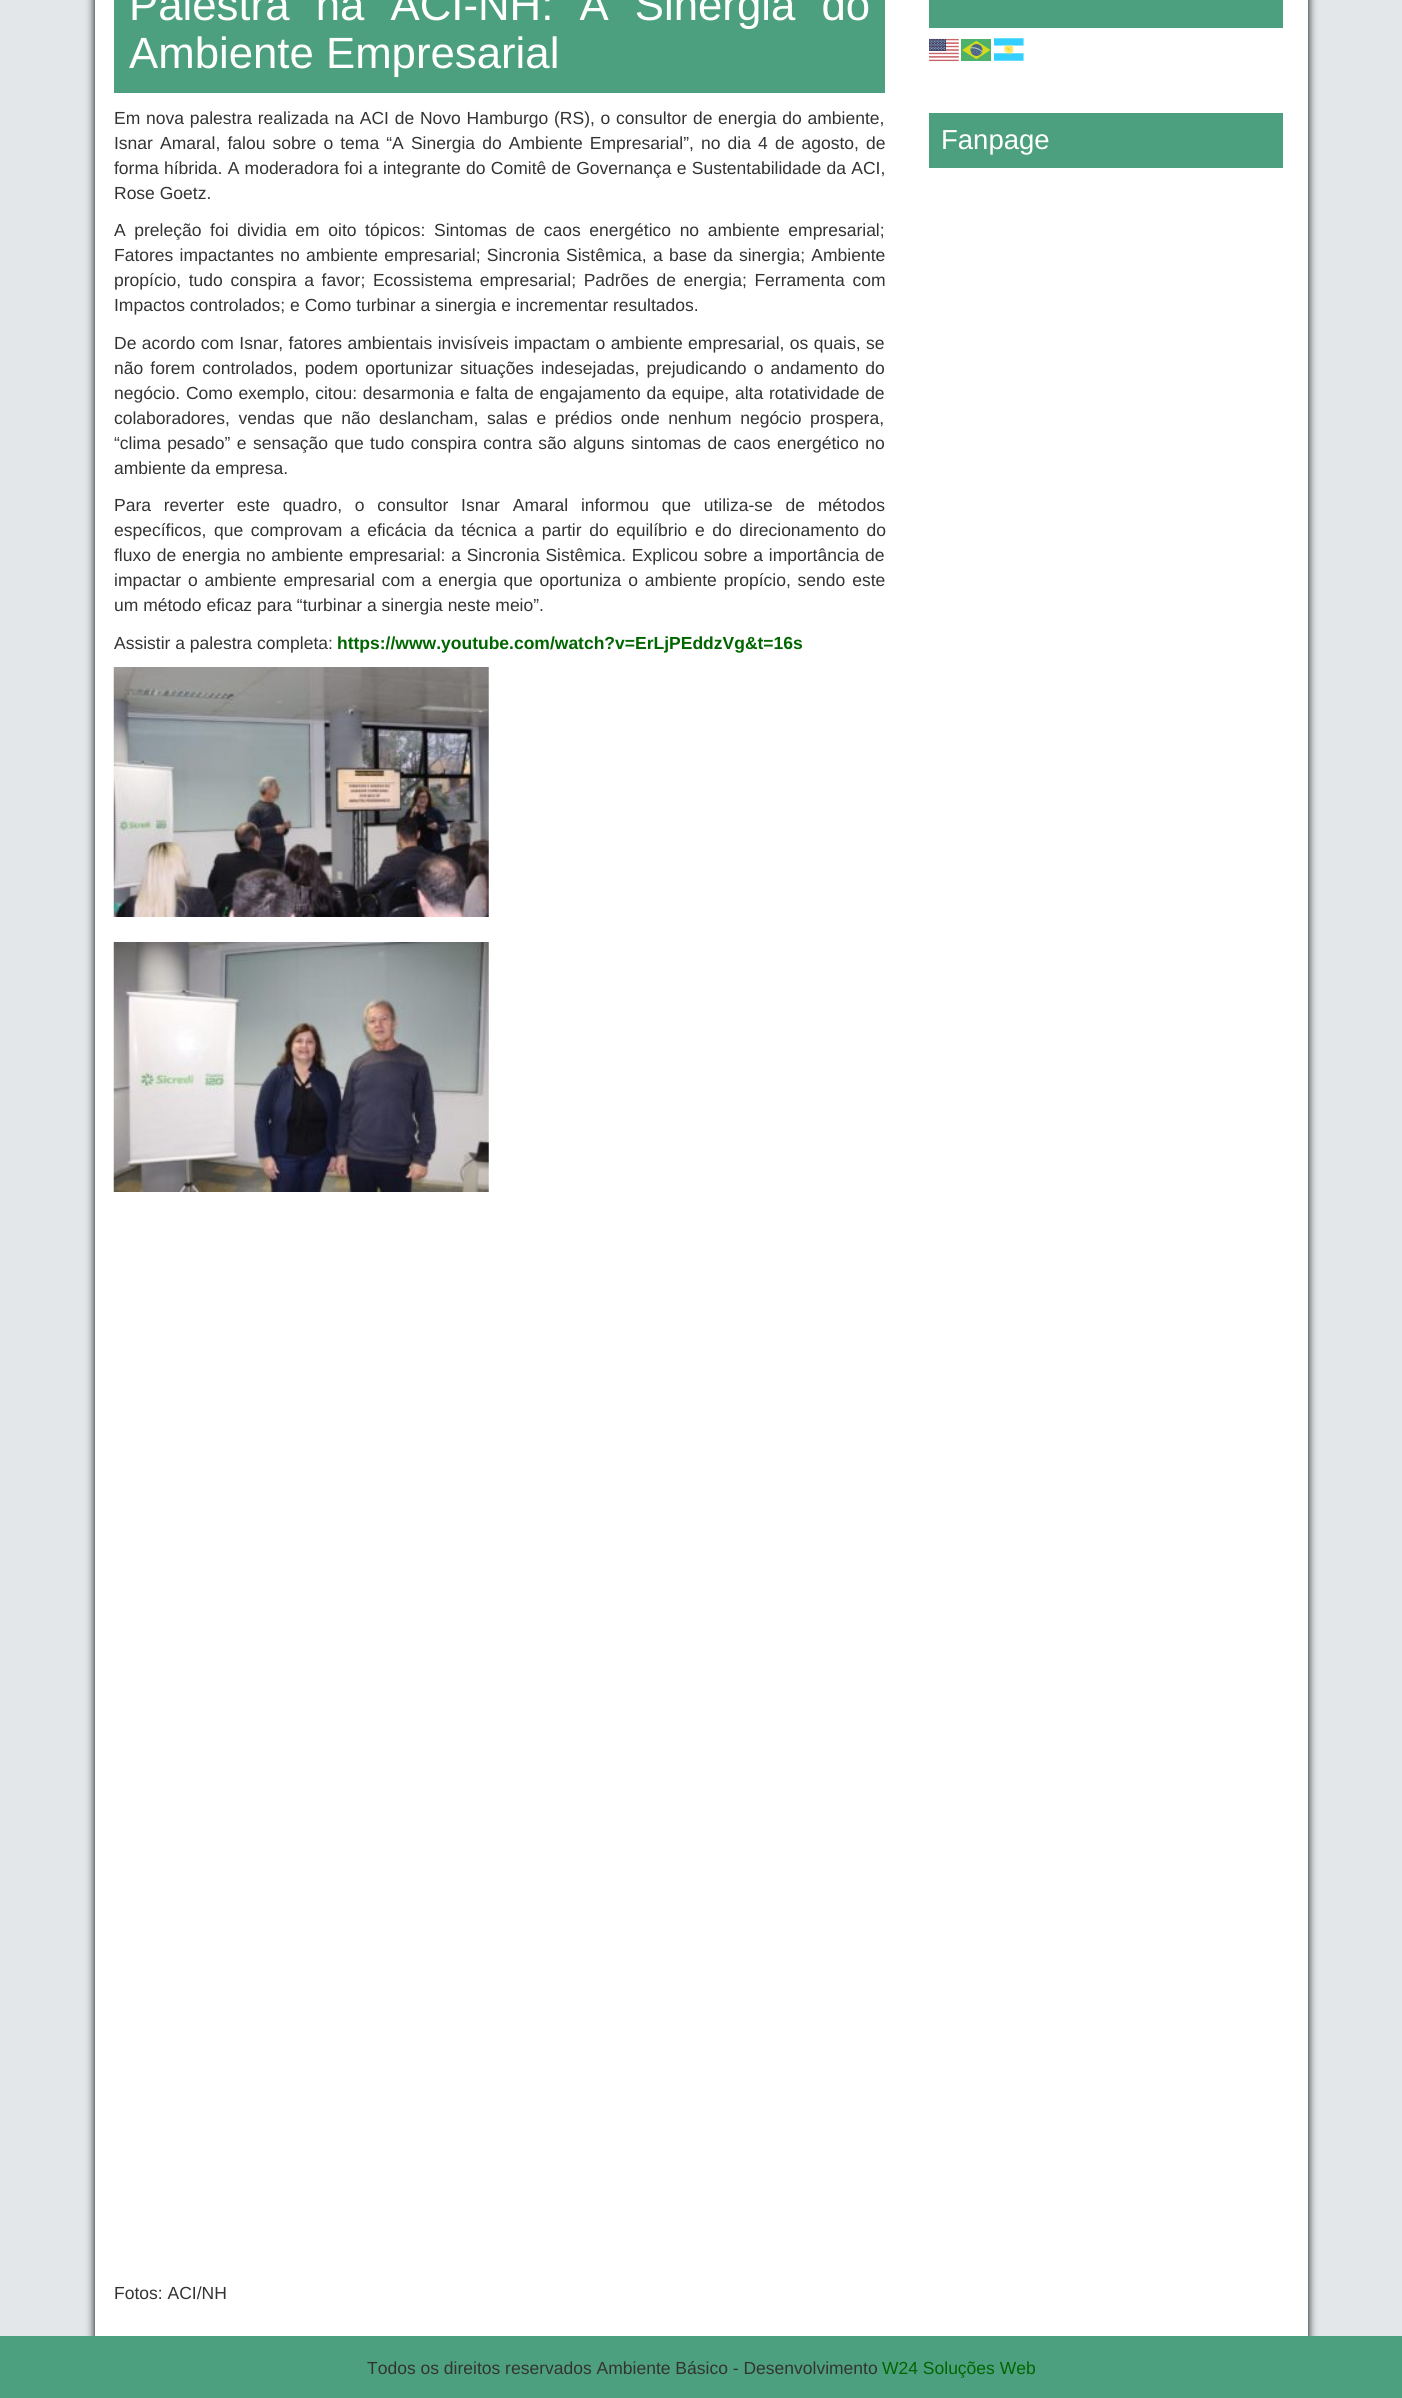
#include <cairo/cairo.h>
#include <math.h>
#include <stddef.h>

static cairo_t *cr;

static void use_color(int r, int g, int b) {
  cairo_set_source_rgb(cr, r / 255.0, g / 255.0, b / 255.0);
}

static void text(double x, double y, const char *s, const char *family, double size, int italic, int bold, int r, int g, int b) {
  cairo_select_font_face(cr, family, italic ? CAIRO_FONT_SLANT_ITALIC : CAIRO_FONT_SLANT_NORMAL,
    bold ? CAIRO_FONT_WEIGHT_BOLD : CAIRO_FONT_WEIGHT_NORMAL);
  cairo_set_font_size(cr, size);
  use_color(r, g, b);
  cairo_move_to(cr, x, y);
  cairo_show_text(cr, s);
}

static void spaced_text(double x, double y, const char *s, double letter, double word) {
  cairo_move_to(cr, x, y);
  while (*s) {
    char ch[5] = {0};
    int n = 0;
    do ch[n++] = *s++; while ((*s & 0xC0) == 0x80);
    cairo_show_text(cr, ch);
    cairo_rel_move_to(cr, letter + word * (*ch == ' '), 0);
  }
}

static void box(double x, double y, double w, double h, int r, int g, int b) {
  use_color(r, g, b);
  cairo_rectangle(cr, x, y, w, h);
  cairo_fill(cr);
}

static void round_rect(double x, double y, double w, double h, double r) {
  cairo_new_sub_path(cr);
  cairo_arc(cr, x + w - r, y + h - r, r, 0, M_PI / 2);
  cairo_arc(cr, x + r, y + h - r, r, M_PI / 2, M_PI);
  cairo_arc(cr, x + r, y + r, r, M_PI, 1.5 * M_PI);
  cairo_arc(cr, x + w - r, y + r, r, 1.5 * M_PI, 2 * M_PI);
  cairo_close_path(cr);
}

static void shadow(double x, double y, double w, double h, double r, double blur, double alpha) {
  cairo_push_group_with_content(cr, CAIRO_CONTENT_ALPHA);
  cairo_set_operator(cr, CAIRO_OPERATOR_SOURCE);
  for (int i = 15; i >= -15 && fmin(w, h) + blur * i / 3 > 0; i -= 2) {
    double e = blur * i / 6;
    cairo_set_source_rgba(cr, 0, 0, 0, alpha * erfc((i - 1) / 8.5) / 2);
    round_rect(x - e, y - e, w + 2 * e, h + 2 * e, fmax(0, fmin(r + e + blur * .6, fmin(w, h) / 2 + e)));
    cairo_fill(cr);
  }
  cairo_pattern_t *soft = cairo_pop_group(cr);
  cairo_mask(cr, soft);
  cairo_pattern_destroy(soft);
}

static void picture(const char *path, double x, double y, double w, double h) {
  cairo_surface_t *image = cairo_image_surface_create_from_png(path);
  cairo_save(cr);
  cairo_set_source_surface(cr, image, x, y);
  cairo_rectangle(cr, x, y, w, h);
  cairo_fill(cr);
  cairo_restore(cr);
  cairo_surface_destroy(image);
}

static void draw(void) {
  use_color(227, 231, 234);
  cairo_paint(cr);
  use_color(0, 0, 0);
  shadow(95, -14, 1213, 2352, 0, 4.5, 1);
  box(95, 0, 1213, 2336, 255, 255, 255);
  box(114, 0, 771, 93, 77, 160, 127);
  picture("img_01.png", 113, 667, 376, 250);
  picture("img_02.png", 113, 942, 376, 250);
  box(929, 0, 354, 28, 77, 160, 127);
  picture("img_03.png", 929, 38, 30, 24);
  picture("img_04.png", 961, 39, 30, 22);
  picture("img_05.png", 994, 38, 30, 23);
  box(929, 113, 354, 55, 77, 160, 127);
  box(0, 2336, 1402, 62, 77, 160, 127);
  cairo_select_font_face(cr, "Liberation Sans", CAIRO_FONT_SLANT_NORMAL, CAIRO_FONT_WEIGHT_NORMAL);
  cairo_set_font_size(cr, 43.75);
  use_color(255, 255, 255);
  spaced_text(129, 20, "Palestra na ACI-NH: A Sinergia do", 0, 14);
  text(129, 68, "Ambiente Empresarial", "Liberation Sans", 43.75, 0, 0, 255, 255, 255);
  cairo_set_font_size(cr, 17.5);
  use_color(51, 51, 51);
  spaced_text(114, 124, "Em nova palestra realizada na ACI de Novo Hamburgo (RS), o consultor de energia do ambiente,", 0, 0.9);
  spaced_text(114, 149, "Isnar Amaral, falou sobre o tema “A Sinergia do Ambiente Empresarial”, no dia 4 de agosto, de", 0, 2.25);
  spaced_text(114, 174, "forma híbrida. A moderadora foi a integrante do Comitê de Governança e Sustentabilidade da ACI,", 0, 0.4);
  text(114, 199, "Rose Goetz.", "Liberation Sans", 17.5, 0, 0, 51, 51, 51);
  spaced_text(114, 236, "A preleção foi dividia em oito tópicos: Sintomas de caos energético no ambiente empresarial;", 0, 3.75);
  spaced_text(114, 261, "Fatores impactantes no ambiente empresarial; Sincronia Sistêmica, a base da sinergia; Ambiente", 0, 1.4);
  spaced_text(114, 286, "propício, tudo conspira a favor; Ecossistema empresarial; Padrões de energia; Ferramenta com", 0, 2.75);
  text(114, 311, "Impactos controlados; e Como turbinar a sinergia e incrementar resultados.", "Liberation Sans", 17.5, 0, 0, 51, 51, 51);
  spaced_text(114, 349, "De acordo com Isnar, fatores ambientais invisíveis impactam o ambiente empresarial, os quais, se", 0, 0.6);
  spaced_text(114, 374, "não forem controlados, podem oportunizar situações indesejadas, prejudicando o andamento do", 0, 2.25);
  spaced_text(114, 399, "negócio. Como exemplo, citou: desarmonia e falta de engajamento da equipe, alta rotatividade de", 0, 0.9);
  spaced_text(114, 424, "colaboradores, vendas que não deslancham, salas e prédios onde nenhum negócio prospera,", 0, 3.75);
  spaced_text(114, 449, "“clima pesado” e sensação que tudo conspira contra são alguns sintomas de caos energético no", 0, 1.6);
  text(114, 474, "ambiente da empresa.", "Liberation Sans", 17.5, 0, 0, 51, 51, 51);
  spaced_text(114, 511, "Para reverter este quadro, o consultor Isnar Amaral informou que utiliza-se de métodos", 0, 7.9);
  spaced_text(114, 536, "específicos, que comprovam a eficácia da técnica a partir do equilíbrio e do direcionamento do", 0, 2.75);
  spaced_text(114, 561, "fluxo de energia no ambiente empresarial: a Sincronia Sistêmica. Explicou sobre a importância de", 0, 0.9);
  spaced_text(114, 586, "impactar o ambiente empresarial com a energia que oportuniza o ambiente propício, sendo este", 0, 2);
  text(114, 611, "um método eficaz para “turbinar a sinergia neste meio”.", "Liberation Sans", 17.5, 0, 0, 51, 51, 51);
  text(114, 649, "Assistir a palestra completa:", "Liberation Sans", 17.5, 0, 0, 51, 51, 51);
  text(337, 649, "https://www.youtube.com/watch?v=ErLjPEddzVg&t=16s", "Liberation Sans", 17.5, 0, 1, 0, 102, 0);
  text(114, 2299, "Fotos: ACI/NH", "Liberation Sans", 17.5, 0, 0, 51, 51, 51);
  text(941, 149, "Fanpage", "Liberation Sans", 27.5, 0, 0, 255, 255, 255);
  text(367, 2374, "Todos os direitos reservados Ambiente Básico - Desenvolvimento", "Liberation Sans", 17.5, 0, 0, 51, 51, 51);
  text(882, 2374, "W24 Soluções Web", "Liberation Sans", 17.5, 0, 0, 0, 102, 0);
}

int main(void) {
  cairo_surface_t *surface = cairo_image_surface_create(CAIRO_FORMAT_RGB24, 1402, 2398);
  cr = cairo_create(surface);
  cairo_font_options_t *options = cairo_font_options_create();
  cairo_font_options_set_hint_metrics(options, CAIRO_HINT_METRICS_OFF);
  cairo_font_options_set_hint_style(options, CAIRO_HINT_STYLE_NONE);
  cairo_set_font_options(cr, options);
  cairo_set_miter_limit(cr, 4);
  draw();
  cairo_surface_write_to_png(surface, "out.png");
  cairo_font_options_destroy(options);
  cairo_destroy(cr);
  cairo_surface_destroy(surface);
  return 0;
}
